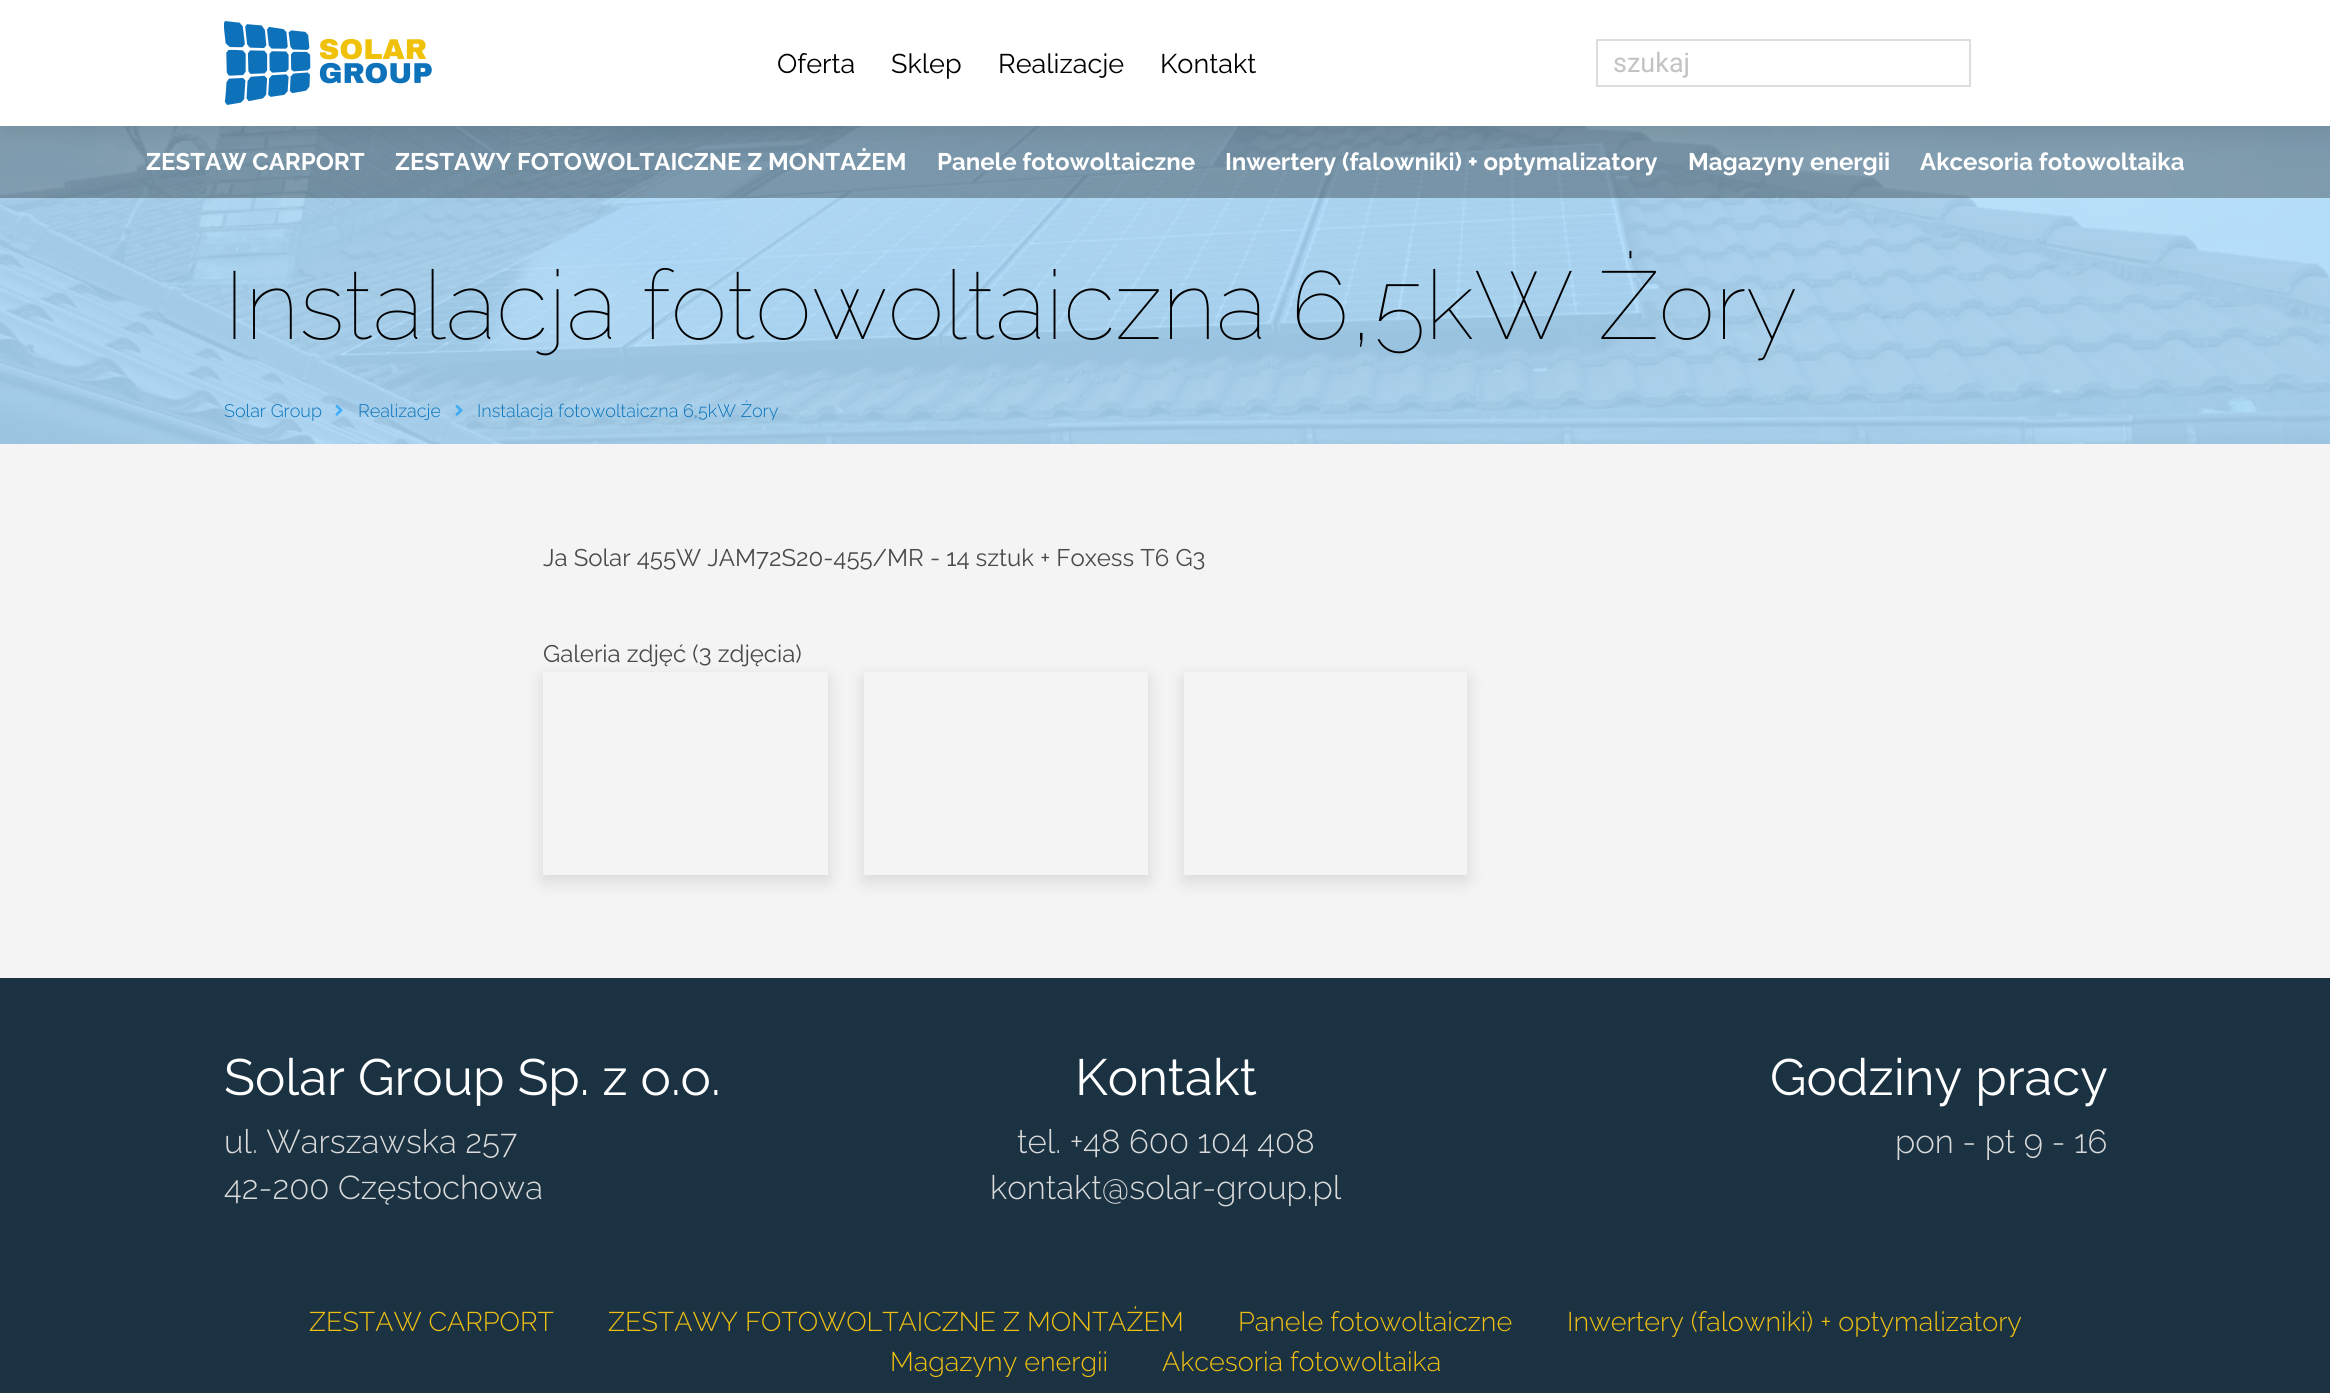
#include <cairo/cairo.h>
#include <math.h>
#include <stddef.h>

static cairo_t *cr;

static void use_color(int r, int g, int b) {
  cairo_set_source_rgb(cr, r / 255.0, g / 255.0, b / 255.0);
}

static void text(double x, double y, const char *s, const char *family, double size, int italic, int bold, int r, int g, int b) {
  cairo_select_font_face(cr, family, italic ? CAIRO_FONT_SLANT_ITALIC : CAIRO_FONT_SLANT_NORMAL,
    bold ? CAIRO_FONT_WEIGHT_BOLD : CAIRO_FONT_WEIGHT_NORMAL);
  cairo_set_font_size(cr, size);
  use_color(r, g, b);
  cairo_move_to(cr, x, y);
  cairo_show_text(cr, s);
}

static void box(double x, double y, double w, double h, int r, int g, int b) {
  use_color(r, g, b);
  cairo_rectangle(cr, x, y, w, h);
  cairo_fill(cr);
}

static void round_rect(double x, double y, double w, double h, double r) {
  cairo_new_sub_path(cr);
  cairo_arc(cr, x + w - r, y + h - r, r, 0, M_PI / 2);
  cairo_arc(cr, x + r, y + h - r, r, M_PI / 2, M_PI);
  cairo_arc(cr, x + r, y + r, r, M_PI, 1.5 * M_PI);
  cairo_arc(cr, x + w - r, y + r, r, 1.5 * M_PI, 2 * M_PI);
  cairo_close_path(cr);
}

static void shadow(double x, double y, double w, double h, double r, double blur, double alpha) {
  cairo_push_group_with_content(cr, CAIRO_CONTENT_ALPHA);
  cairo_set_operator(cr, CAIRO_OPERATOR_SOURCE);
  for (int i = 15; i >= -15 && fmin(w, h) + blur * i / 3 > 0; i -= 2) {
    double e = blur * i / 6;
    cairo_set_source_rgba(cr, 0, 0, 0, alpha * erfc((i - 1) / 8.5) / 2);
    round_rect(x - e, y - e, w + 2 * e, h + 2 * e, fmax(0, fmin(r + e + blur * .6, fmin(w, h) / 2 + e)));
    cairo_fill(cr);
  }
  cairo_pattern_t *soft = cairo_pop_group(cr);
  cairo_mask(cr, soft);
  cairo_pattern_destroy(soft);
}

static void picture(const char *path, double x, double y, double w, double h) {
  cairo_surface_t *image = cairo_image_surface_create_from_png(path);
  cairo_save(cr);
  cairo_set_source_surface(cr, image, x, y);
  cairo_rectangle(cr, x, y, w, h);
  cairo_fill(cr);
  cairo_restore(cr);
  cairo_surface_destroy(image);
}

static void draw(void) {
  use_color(244, 244, 244);
  cairo_paint(cr);
  picture("img_02.png", 0, 126, 2330, 318);
  cairo_set_source_rgba(cr, 0, 0, 0, 0.3);
  cairo_rectangle(cr, 0, 126, 2330, 72);
  cairo_fill(cr);
  use_color(0, 0, 0);
  shadow(0, 8, 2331, 126, 0, 11, 0.08);
  box(0, 0, 2330, 126, 255, 255, 255);
  picture("img_01.png", 224, 21, 208, 84);
  cairo_rectangle(cr, 1597, 40, 373, 46);
  use_color(221, 221, 221);
  cairo_stroke(cr);
  picture("img_03.png", 335, 404, 8, 12);
  picture("img_04.png", 455, 404, 8, 12);
  cairo_save(cr);
  cairo_set_fill_rule(cr, CAIRO_FILL_RULE_EVEN_ODD);
  cairo_new_path(cr);
  cairo_move_to(cr, 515, 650);
  cairo_line_to(cr, 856, 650);
  cairo_line_to(cr, 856, 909);
  cairo_line_to(cr, 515, 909);
  cairo_close_path(cr);
  cairo_move_to(cr, 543, 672);
  cairo_line_to(cr, 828, 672);
  cairo_line_to(cr, 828, 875);
  cairo_line_to(cr, 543, 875);
  cairo_close_path(cr);
  cairo_clip(cr);
  use_color(0, 0, 0);
  shadow(543, 678, 285, 203, 0, 9, 0.12);
  cairo_restore(cr);
  cairo_save(cr);
  cairo_set_fill_rule(cr, CAIRO_FILL_RULE_EVEN_ODD);
  cairo_new_path(cr);
  cairo_move_to(cr, 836, 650);
  cairo_line_to(cr, 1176, 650);
  cairo_line_to(cr, 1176, 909);
  cairo_line_to(cr, 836, 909);
  cairo_close_path(cr);
  cairo_move_to(cr, 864, 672);
  cairo_line_to(cr, 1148, 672);
  cairo_line_to(cr, 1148, 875);
  cairo_line_to(cr, 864, 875);
  cairo_close_path(cr);
  cairo_clip(cr);
  use_color(0, 0, 0);
  shadow(864, 678, 284, 203, 0, 9, 0.12);
  cairo_restore(cr);
  cairo_save(cr);
  cairo_set_fill_rule(cr, CAIRO_FILL_RULE_EVEN_ODD);
  cairo_new_path(cr);
  cairo_move_to(cr, 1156, 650);
  cairo_line_to(cr, 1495, 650);
  cairo_line_to(cr, 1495, 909);
  cairo_line_to(cr, 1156, 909);
  cairo_close_path(cr);
  cairo_move_to(cr, 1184, 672);
  cairo_line_to(cr, 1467, 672);
  cairo_line_to(cr, 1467, 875);
  cairo_line_to(cr, 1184, 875);
  cairo_close_path(cr);
  cairo_clip(cr);
  use_color(0, 0, 0);
  shadow(1184, 678, 283, 203, 0, 9, 0.12);
  cairo_restore(cr);
  box(0, 978, 2330, 415, 27, 50, 66);
  text(777, 73, "Oferta", "Raleway", 27, 0, 0, 0, 0, 0);
  text(891, 73, "Sklep", "Raleway", 27, 0, 0, 0, 0, 0);
  text(998, 73, "Realizacje", "Raleway", 27, 0, 0, 0, 0, 0);
  text(1160, 73, "Kontakt", "Raleway", 27, 0, 0, 0, 0, 0);
  text(1613, 72, "szukaj", "Roboto", 27, 0, 0, 195, 195, 195);
  text(146, 170, "ZESTAW CARPORT", "Raleway", 24, 0, 1, 255, 255, 255);
  text(395, 170, "ZESTAWY FOTOWOLTAICZNE Z MONTAŻEM", "Raleway", 24, 0, 1, 255, 255, 255);
  text(937, 170, "Panele fotowoltaiczne", "Raleway", 24, 0, 1, 255, 255, 255);
  text(1225, 170, "Inwertery (falowniki) + optymalizatory", "Raleway", 24, 0, 1, 255, 255, 255);
  text(1688, 170, "Magazyny energii", "Raleway", 24, 0, 1, 255, 255, 255);
  text(1920, 170, "Akcesoria fotowoltaika", "Raleway", 24, 0, 1, 255, 255, 255);
  text(224, 339, "Instalacja fotowoltaiczna 6,5kW Żory", "Raleway Thin", 96, 0, 0, 0, 0, 0);
  text(224, 417, "Solar Group", "Raleway Light", 18, 0, 0, 8, 114, 185);
  text(358, 417, "Realizacje", "Raleway Light", 18, 0, 0, 8, 114, 185);
  cairo_save(cr);
  cairo_rectangle(cr, 206, 210, 1920, 210);
  cairo_clip(cr);
  text(477, 417, "Instalacja fotowoltaiczna 6,5kW Żory", "Raleway Light", 18, 0, 0, 8, 114, 185);
  cairo_restore(cr);
  text(543, 566, "Ja Solar 455W JAM72S20-455/MR - 14 sztuk + Foxess T6 G3", "Raleway", 24, 0, 0, 74, 74, 74);
  text(543, 662, "Galeria zdjęć (3 zdjęcia)", "Raleway", 24, 0, 0, 74, 74, 74);
  text(224, 1095, "Solar Group Sp. z o.o.", "Raleway", 51, 0, 0, 255, 255, 255);
  text(224, 1153, "ul. Warszawska 257", "Raleway Light", 33, 0, 0, 218, 218, 218);
  text(224, 1199, "42-200 Częstochowa", "Raleway Light", 33, 0, 0, 218, 218, 218);
  text(1075, 1095, "Kontakt", "Raleway", 51, 0, 0, 255, 255, 255);
  text(1017, 1153, "tel. +48 600 104 408", "Raleway Light", 33, 0, 0, 218, 218, 218);
  text(990, 1199, "kontakt@solar-group.pl", "Raleway Light", 33, 0, 0, 218, 218, 218);
  text(1770, 1095, "Godziny pracy", "Raleway", 51, 0, 0, 255, 255, 255);
  text(1895, 1153, "pon - pt 9 - 16", "Raleway Light", 33, 0, 0, 218, 218, 218);
  text(309, 1331, "ZESTAW CARPORT", "Raleway Light", 27, 0, 0, 239, 192, 18);
  text(608, 1331, "ZESTAWY FOTOWOLTAICZNE Z MONTAŻEM", "Raleway Light", 27, 0, 0, 239, 192, 18);
  text(1238, 1331, "Panele fotowoltaiczne", "Raleway Light", 27, 0, 0, 239, 192, 18);
  text(1567, 1331, "Inwertery (falowniki) + optymalizatory", "Raleway Light", 27, 0, 0, 239, 192, 18);
  text(890, 1371, "Magazyny energii", "Raleway Light", 27, 0, 0, 239, 192, 18);
  text(1162, 1371, "Akcesoria fotowoltaika", "Raleway Light", 27, 0, 0, 239, 192, 18);
}

int main(void) {
  cairo_surface_t *surface = cairo_image_surface_create(CAIRO_FORMAT_RGB24, 2330, 1393);
  cr = cairo_create(surface);
  cairo_font_options_t *options = cairo_font_options_create();
  cairo_font_options_set_hint_metrics(options, CAIRO_HINT_METRICS_OFF);
  cairo_font_options_set_hint_style(options, CAIRO_HINT_STYLE_NONE);
  cairo_set_font_options(cr, options);
  cairo_set_miter_limit(cr, 4);
  draw();
  cairo_surface_write_to_png(surface, "out.png");
  cairo_font_options_destroy(options);
  cairo_destroy(cr);
  cairo_surface_destroy(surface);
  return 0;
}
